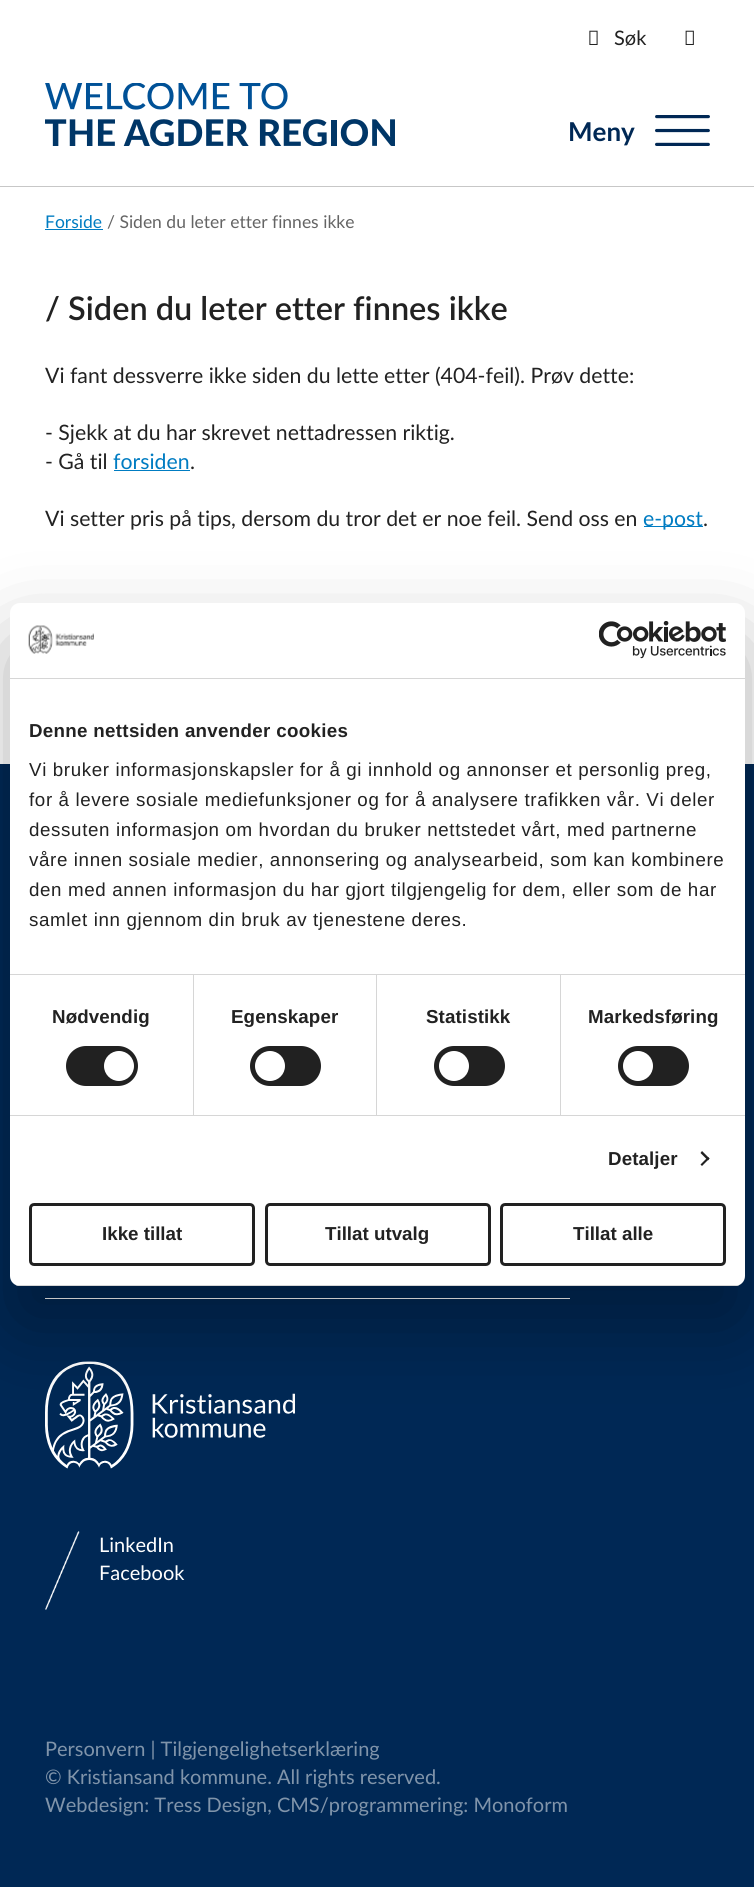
#include <cairo/cairo.h>
#include <math.h>
#include <stddef.h>

static cairo_t *cr;

static void use_color(int r, int g, int b) {
  cairo_set_source_rgb(cr, r / 255.0, g / 255.0, b / 255.0);
}

static void text(double x, double y, const char *s, const char *family, double size, int italic, int bold, int r, int g, int b) {
  cairo_select_font_face(cr, family, italic ? CAIRO_FONT_SLANT_ITALIC : CAIRO_FONT_SLANT_NORMAL,
    bold ? CAIRO_FONT_WEIGHT_BOLD : CAIRO_FONT_WEIGHT_NORMAL);
  cairo_set_font_size(cr, size);
  use_color(r, g, b);
  cairo_move_to(cr, x, y);
  cairo_show_text(cr, s);
}

static void spaced_text(double x, double y, const char *s, double letter, double word) {
  cairo_move_to(cr, x, y);
  while (*s) {
    char ch[5] = {0};
    int n = 0;
    do ch[n++] = *s++; while ((*s & 0xC0) == 0x80);
    cairo_show_text(cr, ch);
    cairo_rel_move_to(cr, letter + word * (*ch == ' '), 0);
  }
}

static void box(double x, double y, double w, double h, int r, int g, int b) {
  use_color(r, g, b);
  cairo_rectangle(cr, x, y, w, h);
  cairo_fill(cr);
}

static void round_rect(double x, double y, double w, double h, double r) {
  cairo_new_sub_path(cr);
  cairo_arc(cr, x + w - r, y + h - r, r, 0, M_PI / 2);
  cairo_arc(cr, x + r, y + h - r, r, M_PI / 2, M_PI);
  cairo_arc(cr, x + r, y + r, r, M_PI, 1.5 * M_PI);
  cairo_arc(cr, x + w - r, y + r, r, 1.5 * M_PI, 2 * M_PI);
  cairo_close_path(cr);
}

static void shadow(double x, double y, double w, double h, double r, double blur, double alpha) {
  cairo_push_group_with_content(cr, CAIRO_CONTENT_ALPHA);
  cairo_set_operator(cr, CAIRO_OPERATOR_SOURCE);
  for (int i = 15; i >= -15 && fmin(w, h) + blur * i / 3 > 0; i -= 2) {
    double e = blur * i / 6;
    cairo_set_source_rgba(cr, 0, 0, 0, alpha * erfc((i - 1) / 8.5) / 2);
    round_rect(x - e, y - e, w + 2 * e, h + 2 * e, fmax(0, fmin(r + e + blur * .6, fmin(w, h) / 2 + e)));
    cairo_fill(cr);
  }
  cairo_pattern_t *soft = cairo_pop_group(cr);
  cairo_mask(cr, soft);
  cairo_pattern_destroy(soft);
}

static void picture(const char *path, double x, double y, double w, double h) {
  cairo_surface_t *image = cairo_image_surface_create_from_png(path);
  cairo_save(cr);
  cairo_set_source_surface(cr, image, x, y);
  cairo_rectangle(cr, x, y, w, h);
  cairo_fill(cr);
  cairo_restore(cr);
  cairo_surface_destroy(image);
}

static void draw(void) {
  use_color(255, 255, 255);
  cairo_paint(cr);
  picture("img_01.png", 589, 30, 9, 15);
  picture("img_02.png", 685, 30, 9, 15);
  picture("img_03.png", 45, 83, 350, 63);
  picture("img_04.png", 655, 115, 55, 31);
  box(0, 186, 754, 1, 199, 199, 199);
  box(45, 229, 58, 1, 0, 124, 194);
  box(114, 470, 76, 1, 0, 124, 194);
  box(644, 526, 59, 1, 0, 124, 194);
  box(0, 764, 754, 1123, 0, 40, 85);
  box(45, 1298, 525, 1, 255, 255, 255);
  picture("img_07.png", 45, 1361, 250, 108);
  use_color(0, 0, 0);
  shadow(10, 643, 735, 683, 10, 42.5, 0.3);
  use_color(255, 255, 255);
  round_rect(10, 603, 735, 683, 10);
  cairo_fill(cr);
  box(10, 678, 735, 1, 214, 214, 214);
  picture("img_05.png", 28, 625, 66, 29);
  picture("img_06.png", 599, 621, 127, 38);
  box(10, 974, 735, 1, 214, 214, 214);
  box(10, 1115, 735, 1, 214, 214, 214);
  box(193, 975, 1, 140, 214, 214, 214);
  use_color(33, 33, 33);
  round_rect(66, 1046, 72, 40, 20);
  cairo_fill(cr);
  use_color(255, 255, 255);
  cairo_arc(cr, 119, 1066, 15, 0, 2 * M_PI);
  cairo_fill(cr);
  box(376, 975, 1, 140, 214, 214, 214);
  use_color(33, 33, 33);
  round_rect(250, 1046, 71, 40, 20);
  cairo_fill(cr);
  use_color(255, 255, 255);
  cairo_arc(cr, 270, 1066, 15, 0, 2 * M_PI);
  cairo_fill(cr);
  box(560, 975, 1, 140, 214, 214, 214);
  use_color(33, 33, 33);
  round_rect(434, 1046, 71, 40, 20);
  cairo_fill(cr);
  use_color(255, 255, 255);
  cairo_arc(cr, 454, 1066, 15, 0, 2 * M_PI);
  cairo_fill(cr);
  use_color(33, 33, 33);
  round_rect(618, 1046, 71, 40, 20);
  cairo_fill(cr);
  use_color(255, 255, 255);
  cairo_arc(cr, 638, 1066, 15, 0, 2 * M_PI);
  cairo_fill(cr);
  use_color(33, 33, 33);
  cairo_new_path(cr);
  cairo_move_to(cr, 702, 1151);
  cairo_line_to(cr, 709.5, 1158.5);
  cairo_line_to(cr, 708, 1160.5);
  cairo_line_to(cr, 700.5, 1153);
  cairo_close_path(cr);
  cairo_fill(cr);
  cairo_new_path(cr);
  cairo_move_to(cr, 708, 1157);
  cairo_line_to(cr, 709.5, 1158.5);
  cairo_line_to(cr, 702, 1166);
  cairo_line_to(cr, 700.5, 1164.5);
  cairo_close_path(cr);
  cairo_fill(cr);
  cairo_save(cr);
  round_rect(10, 603, 735, 683, 10);
  cairo_clip(cr);
  box(10, 1285, 735, 1, 214, 214, 214);
  cairo_restore(cr);
  round_rect(30.5, 1204.5, 223, 60, 3.5);
  cairo_set_line_width(cr, 3);
  cairo_stroke(cr);
  round_rect(266.5, 1204.5, 223, 60, 3.5);
  cairo_stroke(cr);
  round_rect(501.5, 1204.5, 223, 60, 3.5);
  cairo_stroke(cr);
  picture("img_08.png", 45, 1531, 35, 79);
  text(614, 45, "Søk", "Lato", 20, 0, 0, 34, 34, 34);
  text(568, 141, "Meny", "Lato", 26, 0, 1, 0, 40, 85);
  text(45, 228, "Forside", "Lato", 17.5, 0, 0, 0, 124, 194);
  text(107, 228, "/ Siden du leter etter finnes ikke", "Lato", 17.5, 0, 0, 100, 100, 100);
  text(45, 320, "/ Siden du leter etter finnes ikke", "Lato SemiBold", 32.5, 0, 0, 34, 34, 34);
  text(45, 383, "Vi fant dessverre ikke siden du lette etter (404-feil). Prøv dette:", "Lato", 21.25, 0, 0, 34, 34, 34);
  text(45, 440, "- Sjekk at du har skrevet nettadressen riktig.", "Lato", 21.25, 0, 0, 34, 34, 34);
  text(45, 469, "- Gå til", "Lato", 21.25, 0, 0, 34, 34, 34);
  text(113, 469, "forsiden", "Lato", 21.25, 0, 0, 0, 124, 194);
  text(190, 469, ".", "Lato", 21.25, 0, 0, 34, 34, 34);
  text(45, 526, "Vi setter pris på tips, dersom du tror det er noe feil. Send oss en", "Lato", 21.25, 0, 0, 34, 34, 34);
  text(643, 526, "e-post", "Lato", 21.25, 0, 0, 0, 124, 194);
  text(703, 526, ".", "Lato", 21.25, 0, 0, 34, 34, 34);
  cairo_select_font_face(cr, "Liberation Sans", CAIRO_FONT_SLANT_NORMAL, CAIRO_FONT_WEIGHT_BOLD);
  cairo_set_font_size(cr, 18.75);
  spaced_text(29, 737, "Denne nettsiden anvender cookies", 0.3, 0);
  cairo_select_font_face(cr, "Liberation Sans", CAIRO_FONT_SLANT_NORMAL, CAIRO_FONT_WEIGHT_NORMAL);
  spaced_text(29, 776, "Vi bruker informasjonskapsler for å gi innhold og annonser et personlig preg,", 0.62, 0);
  spaced_text(29, 806, "for å levere sosiale mediefunksjoner og for å analysere trafikken vår. Vi deler", 0.62, 0);
  spaced_text(29, 836, "dessuten informasjon om hvordan du bruker nettstedet vårt, med partnerne", 0.62, 0);
  spaced_text(29, 866, "våre innen sosiale medier, annonsering og analysearbeid, som kan kombinere", 0.62, 0);
  spaced_text(29, 896, "den med annen informasjon du har gjort tilgjengelig for dem, eller som de har", 0.62, 0);
  spaced_text(29, 926, "samlet inn gjennom din bruk av tjenestene deres.", 0.62, 0);
  cairo_select_font_face(cr, "Liberation Sans", CAIRO_FONT_SLANT_NORMAL, CAIRO_FONT_WEIGHT_BOLD);
  spaced_text(52, 1023, "Nødvendig", 0.1, 0);
  spaced_text(231, 1023, "Egenskaper", 0.1, 0);
  spaced_text(426, 1023, "Statistikk", 0.1, 0);
  spaced_text(588, 1023, "Markedsføring", 0.1, 0);
  spaced_text(608, 1165, "Detaljer", 0.1, 0);
  text(102, 1240, "Ikke tillat", "Liberation Sans", 18.75, 0, 1, 34, 34, 34);
  text(325, 1240, "Tillat utvalg", "Liberation Sans", 18.75, 0, 1, 34, 34, 34);
  text(573, 1240, "Tillat alle", "Liberation Sans", 18.75, 0, 1, 34, 34, 34);
  text(99, 1552, "LinkedIn", "Lato", 20, 0, 0, 255, 255, 255);
  text(99, 1580, "Facebook", "Lato", 20, 0, 0, 255, 255, 255);
  text(45, 1756, "Personvern | Tilgjengelighetserklæring", "Lato", 20, 0, 0, 128, 148, 170);
  text(45, 1784, "© Kristiansand kommune. All rights reserved.", "Lato", 20, 0, 0, 128, 148, 170);
  text(45, 1812, "Webdesign: Tress Design, CMS/programmering: Monoform", "Lato", 20, 0, 0, 128, 148, 170);
}

int main(void) {
  cairo_surface_t *surface = cairo_image_surface_create(CAIRO_FORMAT_RGB24, 754, 1887);
  cr = cairo_create(surface);
  cairo_font_options_t *options = cairo_font_options_create();
  cairo_font_options_set_hint_metrics(options, CAIRO_HINT_METRICS_OFF);
  cairo_font_options_set_hint_style(options, CAIRO_HINT_STYLE_NONE);
  cairo_set_font_options(cr, options);
  cairo_set_miter_limit(cr, 4);
  draw();
  cairo_surface_write_to_png(surface, "out.png");
  cairo_font_options_destroy(options);
  cairo_destroy(cr);
  cairo_surface_destroy(surface);
  return 0;
}
